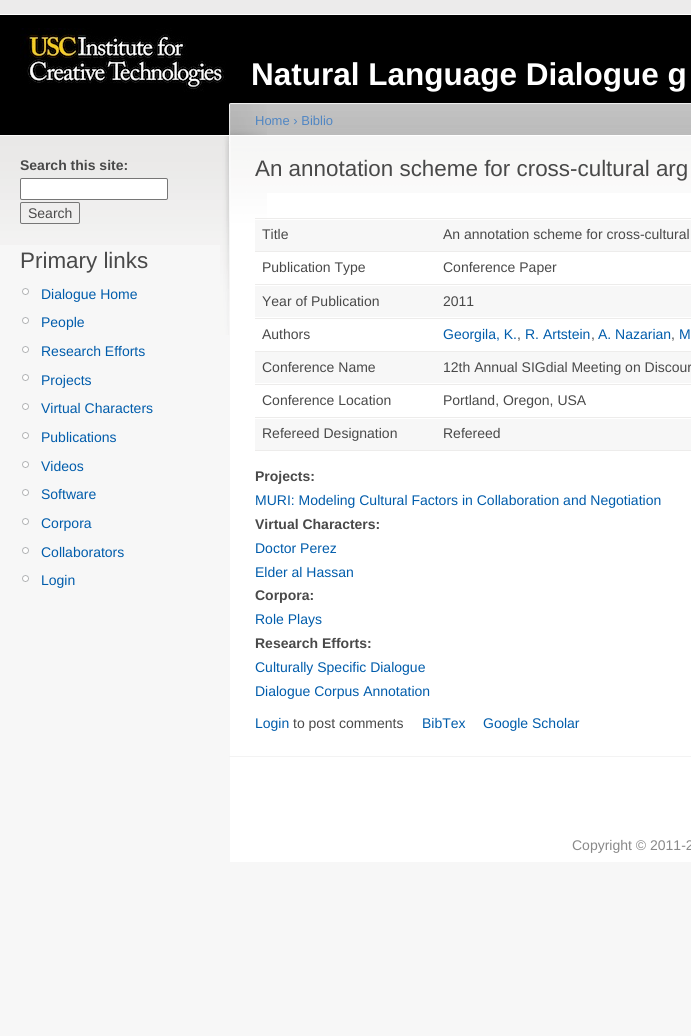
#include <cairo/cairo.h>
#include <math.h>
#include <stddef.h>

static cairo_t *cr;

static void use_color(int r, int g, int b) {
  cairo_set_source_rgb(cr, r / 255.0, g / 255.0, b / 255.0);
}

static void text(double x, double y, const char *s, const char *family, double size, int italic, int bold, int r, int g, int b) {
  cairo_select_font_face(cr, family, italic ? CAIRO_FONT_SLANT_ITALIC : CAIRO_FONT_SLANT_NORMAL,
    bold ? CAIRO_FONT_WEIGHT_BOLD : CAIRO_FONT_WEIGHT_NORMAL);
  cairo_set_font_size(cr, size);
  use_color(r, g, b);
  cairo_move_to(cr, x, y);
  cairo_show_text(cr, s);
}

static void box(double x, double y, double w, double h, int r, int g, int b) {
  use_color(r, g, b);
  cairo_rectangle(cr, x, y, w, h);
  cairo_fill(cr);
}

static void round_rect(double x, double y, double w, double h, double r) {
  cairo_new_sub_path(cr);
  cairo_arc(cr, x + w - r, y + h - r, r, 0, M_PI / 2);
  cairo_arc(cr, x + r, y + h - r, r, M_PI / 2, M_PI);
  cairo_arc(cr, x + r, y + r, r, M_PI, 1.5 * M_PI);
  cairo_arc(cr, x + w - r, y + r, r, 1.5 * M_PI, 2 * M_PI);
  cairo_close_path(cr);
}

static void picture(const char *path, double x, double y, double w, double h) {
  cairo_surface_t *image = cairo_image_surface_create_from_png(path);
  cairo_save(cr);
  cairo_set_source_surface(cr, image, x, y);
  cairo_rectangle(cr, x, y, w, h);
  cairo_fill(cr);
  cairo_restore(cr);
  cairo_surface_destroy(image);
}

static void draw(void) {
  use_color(247, 247, 247);
  cairo_paint(cr);
  box(0, 0, 691, 14, 236, 235, 235);
  picture("img_01.png", 0, 14, 691, 231);
  picture("img_02.png", 20, 28, 206, 64);
  use_color(255, 255, 255);
  round_rect(20.5, 178.5, 147, 21, 1.5);
  cairo_fill_preserve(cr);
  use_color(118, 118, 118);
  cairo_set_line_width(cr, 1);
  cairo_stroke(cr);
  round_rect(20.5, 202.5, 59, 21, 1.5);
  cairo_stroke(cr);
  picture("img_03.png", 22, 288, 7, 7);
  picture("img_03.png", 22, 317, 7, 7);
  picture("img_03.png", 22, 346, 7, 7);
  picture("img_03.png", 22, 374, 7, 7);
  picture("img_03.png", 22, 403, 7, 7);
  picture("img_03.png", 22, 432, 7, 7);
  picture("img_03.png", 22, 461, 7, 7);
  picture("img_03.png", 22, 489, 7, 7);
  picture("img_03.png", 22, 518, 7, 7);
  picture("img_03.png", 22, 547, 7, 7);
  picture("img_03.png", 22, 575, 7, 7);
  box(230, 193, 461, 669, 255, 255, 255);
  picture("img_04.png", 230, 94, 461, 99);
  picture("img_05.png", 220, 103, 47, 232);
  box(229, 756, 462, 1, 243, 243, 243);
  box(255, 220, 436, 31, 247, 247, 247);
  box(255, 218, 436, 1, 237, 236, 235);
  box(255, 251, 436, 1, 237, 236, 235);
  box(255, 286, 436, 31, 247, 247, 247);
  box(255, 284, 436, 1, 237, 236, 235);
  box(255, 318, 436, 1, 237, 236, 235);
  box(255, 352, 436, 31, 247, 247, 247);
  box(255, 351, 436, 1, 237, 236, 235);
  box(255, 384, 436, 1, 237, 236, 235);
  box(255, 419, 436, 31, 247, 247, 247);
  box(255, 417, 436, 1, 237, 236, 235);
  box(255, 450, 436, 1, 237, 236, 235);
  text(251, 85, "Natural Language Dialogue g", "Liberation Sans", 31.5, 0, 1, 255, 255, 255);
  text(20, 170, "Search this site:", "Liberation Sans", 14, 0, 1, 73, 73, 73);
  text(28, 218, "Search", "Liberation Sans", 14, 0, 0, 73, 73, 73);
  text(20, 268, "Primary links", "Liberation Sans", 22.4, 0, 0, 73, 73, 73);
  text(41, 299, "Dialogue Home", "Liberation Sans", 14, 0, 0, 0, 92, 171);
  text(41, 327, "People", "Liberation Sans", 14, 0, 0, 0, 92, 171);
  text(41, 356, "Research Efforts", "Liberation Sans", 14, 0, 0, 0, 92, 171);
  text(41, 385, "Projects", "Liberation Sans", 14, 0, 0, 0, 92, 171);
  text(41, 413, "Virtual Characters", "Liberation Sans", 14, 0, 0, 0, 92, 171);
  text(41, 442, "Publications", "Liberation Sans", 14, 0, 0, 0, 92, 171);
  text(41, 471, "Videos", "Liberation Sans", 14, 0, 0, 0, 92, 171);
  text(41, 499, "Software", "Liberation Sans", 14, 0, 0, 0, 92, 171);
  text(41, 528, "Corpora", "Liberation Sans", 14, 0, 0, 0, 92, 171);
  text(41, 557, "Collaborators", "Liberation Sans", 14, 0, 0, 0, 92, 171);
  text(41, 585, "Login", "Liberation Sans", 14, 0, 0, 0, 92, 171);
  text(255, 125, "Home › Biblio", "Liberation Sans", 13, 0, 0, 80, 134, 195);
  text(255, 176, "An annotation scheme for cross-cultural arg", "Liberation Sans", 22.4, 0, 0, 73, 73, 73);
  text(262, 239, "Title", "Liberation Sans", 14, 0, 0, 73, 73, 73);
  text(443, 239, "An annotation scheme for cross-cultural", "Liberation Sans", 14, 0, 0, 73, 73, 73);
  text(262, 272, "Publication Type", "Liberation Sans", 14, 0, 0, 73, 73, 73);
  text(443, 272, "Conference Paper", "Liberation Sans", 14, 0, 0, 73, 73, 73);
  text(262, 306, "Year of Publication", "Liberation Sans", 14, 0, 0, 73, 73, 73);
  text(443, 306, "2011", "Liberation Sans", 14, 0, 0, 73, 73, 73);
  text(262, 339, "Authors", "Liberation Sans", 14, 0, 0, 73, 73, 73);
  text(443, 339, "Georgila, K.", "Liberation Sans", 14, 0, 0, 0, 92, 171);
  text(517, 339, ",", "Liberation Sans", 14, 0, 0, 73, 73, 73);
  text(525, 339, "R. Artstein", "Liberation Sans", 14, 0, 0, 0, 92, 171);
  text(591, 339, ",", "Liberation Sans", 14, 0, 0, 73, 73, 73);
  text(598, 339, "A. Nazarian", "Liberation Sans", 14, 0, 0, 0, 92, 171);
  text(671, 339, ",", "Liberation Sans", 14, 0, 0, 73, 73, 73);
  text(679, 339, "M", "Liberation Sans", 14, 0, 0, 0, 92, 171);
  text(262, 372, "Conference Name", "Liberation Sans", 14, 0, 0, 73, 73, 73);
  text(443, 372, "12th Annual SIGdial Meeting on Discour", "Liberation Sans", 14, 0, 0, 73, 73, 73);
  text(262, 405, "Conference Location", "Liberation Sans", 14, 0, 0, 73, 73, 73);
  text(443, 405, "Portland, Oregon, USA", "Liberation Sans", 14, 0, 0, 73, 73, 73);
  text(262, 438, "Refereed Designation", "Liberation Sans", 14, 0, 0, 73, 73, 73);
  text(443, 438, "Refereed", "Liberation Sans", 14, 0, 0, 73, 73, 73);
  text(255, 481, "Projects:", "Liberation Sans", 14, 0, 1, 73, 73, 73);
  text(255, 505, "MURI: Modeling Cultural Factors in Collaboration and Negotiation", "Liberation Sans", 14, 0, 0, 0, 92, 171);
  text(255, 529, "Virtual Characters:", "Liberation Sans", 14, 0, 1, 73, 73, 73);
  text(255, 553, "Doctor Perez", "Liberation Sans", 14, 0, 0, 0, 92, 171);
  text(255, 577, "Elder al Hassan", "Liberation Sans", 14, 0, 0, 0, 92, 171);
  text(255, 600, "Corpora:", "Liberation Sans", 14, 0, 1, 73, 73, 73);
  text(255, 624, "Role Plays", "Liberation Sans", 14, 0, 0, 0, 92, 171);
  text(255, 648, "Research Efforts:", "Liberation Sans", 14, 0, 1, 73, 73, 73);
  text(255, 672, "Culturally Specific Dialogue", "Liberation Sans", 14, 0, 0, 0, 92, 171);
  text(255, 696, "Dialogue Corpus Annotation", "Liberation Sans", 14, 0, 0, 0, 92, 171);
  text(255, 728, "Login", "Liberation Sans", 14, 0, 0, 0, 92, 171);
  text(293, 728, "to post comments", "Liberation Sans", 14, 0, 0, 73, 73, 73);
  text(422, 728, "BibTex", "Liberation Sans", 14, 0, 0, 0, 92, 171);
  text(483, 728, "Google Scholar", "Liberation Sans", 14, 0, 0, 0, 92, 171);
  text(572, 850, "Copyright © 2011-2", "Liberation Sans", 14, 0, 0, 137, 137, 137);
}

int main(void) {
  cairo_surface_t *surface = cairo_image_surface_create(CAIRO_FORMAT_RGB24, 691, 1036);
  cr = cairo_create(surface);
  cairo_font_options_t *options = cairo_font_options_create();
  cairo_font_options_set_hint_metrics(options, CAIRO_HINT_METRICS_OFF);
  cairo_font_options_set_hint_style(options, CAIRO_HINT_STYLE_NONE);
  cairo_set_font_options(cr, options);
  cairo_set_miter_limit(cr, 4);
  draw();
  cairo_surface_write_to_png(surface, "out.png");
  cairo_font_options_destroy(options);
  cairo_destroy(cr);
  cairo_surface_destroy(surface);
  return 0;
}
